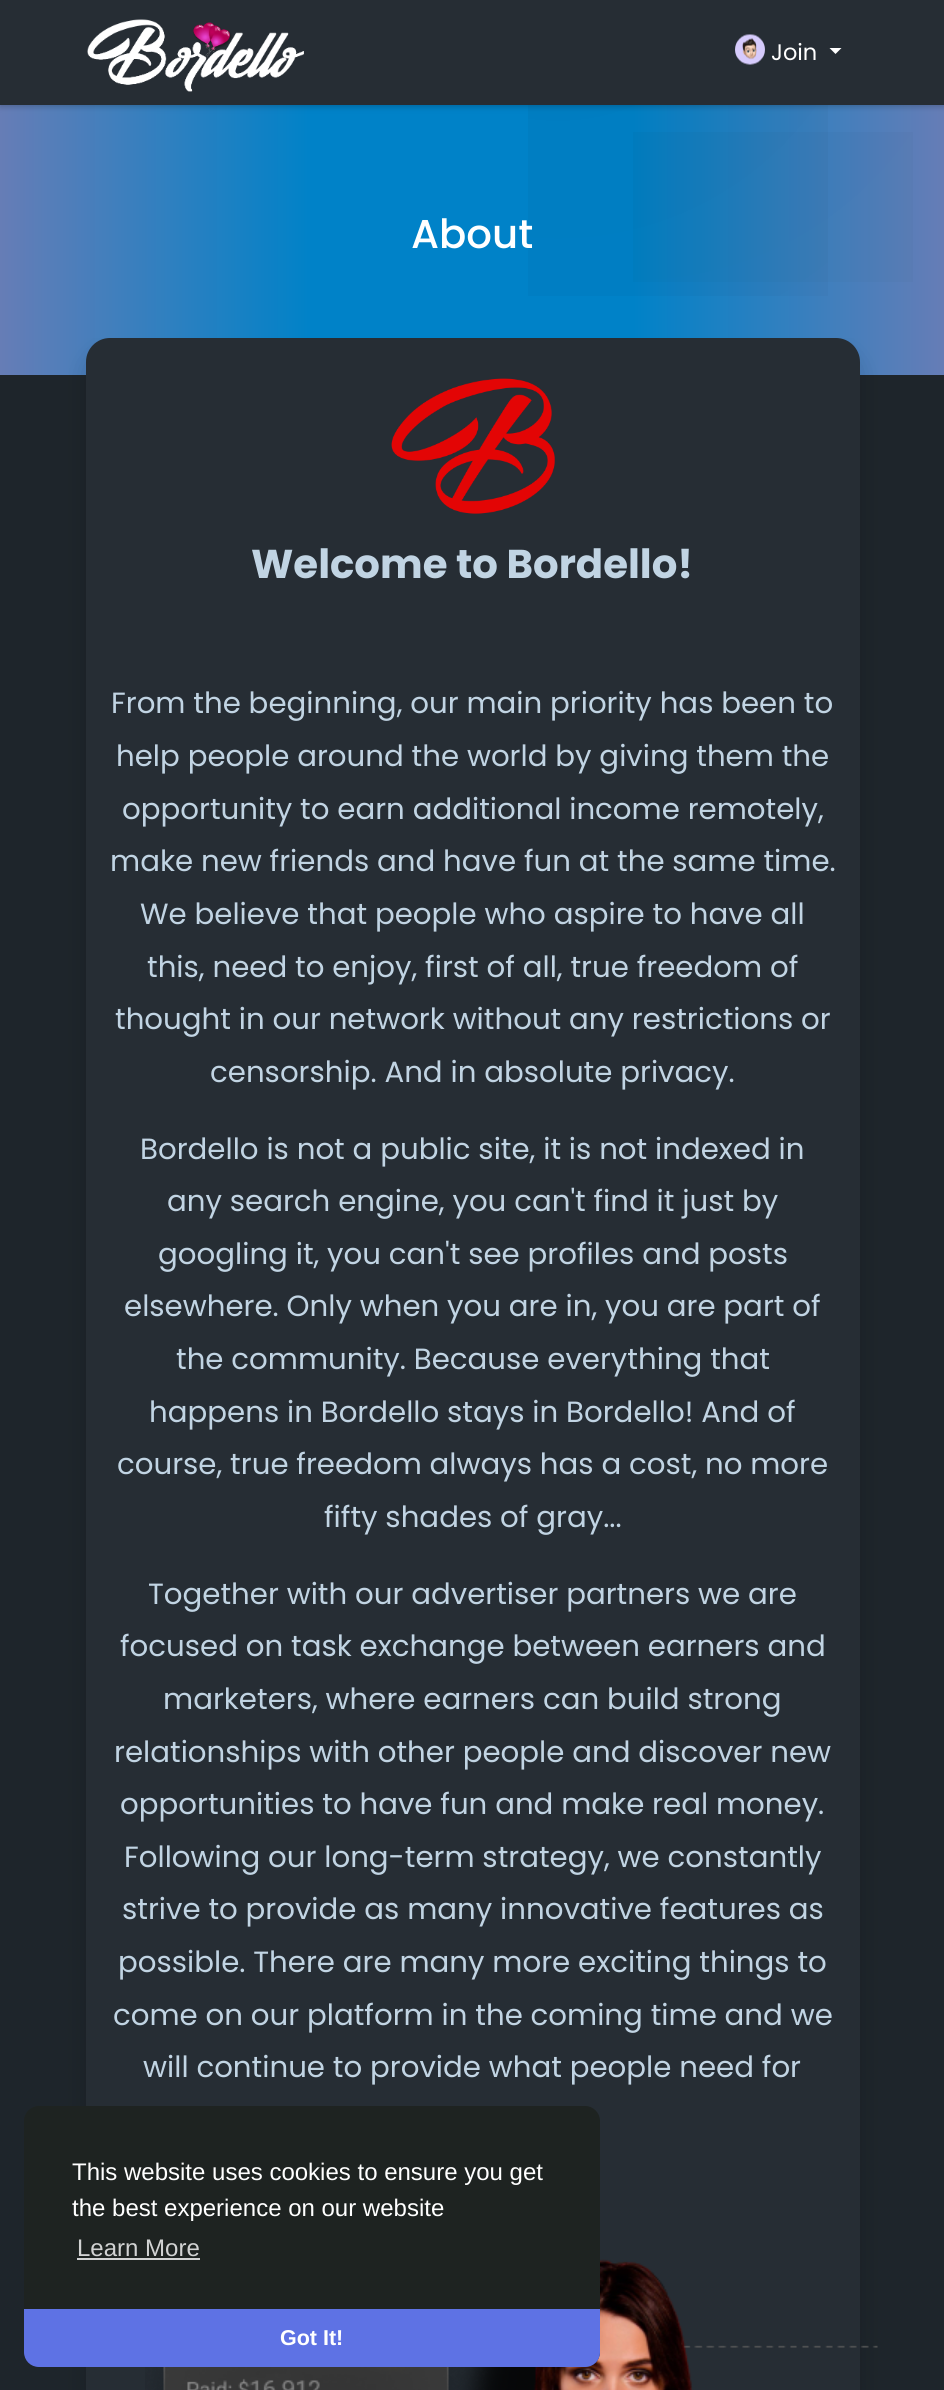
#include <cairo/cairo.h>
#include <math.h>
#include <stddef.h>

static cairo_t *cr;

static void use_color(int r, int g, int b) {
  cairo_set_source_rgb(cr, r / 255.0, g / 255.0, b / 255.0);
}

static void text(double x, double y, const char *s, const char *family, double size, int italic, int bold, int r, int g, int b) {
  cairo_select_font_face(cr, family, italic ? CAIRO_FONT_SLANT_ITALIC : CAIRO_FONT_SLANT_NORMAL,
    bold ? CAIRO_FONT_WEIGHT_BOLD : CAIRO_FONT_WEIGHT_NORMAL);
  cairo_set_font_size(cr, size);
  use_color(r, g, b);
  cairo_move_to(cr, x, y);
  cairo_show_text(cr, s);
}

static void box(double x, double y, double w, double h, int r, int g, int b) {
  use_color(r, g, b);
  cairo_rectangle(cr, x, y, w, h);
  cairo_fill(cr);
}

static void round_rect(double x, double y, double w, double h, double r) {
  cairo_new_sub_path(cr);
  cairo_arc(cr, x + w - r, y + h - r, r, 0, M_PI / 2);
  cairo_arc(cr, x + r, y + h - r, r, M_PI / 2, M_PI);
  cairo_arc(cr, x + r, y + r, r, M_PI, 1.5 * M_PI);
  cairo_arc(cr, x + w - r, y + r, r, 1.5 * M_PI, 2 * M_PI);
  cairo_close_path(cr);
}

static void shadow(double x, double y, double w, double h, double r, double blur, double alpha) {
  cairo_push_group_with_content(cr, CAIRO_CONTENT_ALPHA);
  cairo_set_operator(cr, CAIRO_OPERATOR_SOURCE);
  for (int i = 15; i >= -15 && fmin(w, h) + blur * i / 3 > 0; i -= 2) {
    double e = blur * i / 6;
    cairo_set_source_rgba(cr, 0, 0, 0, alpha * erfc((i - 1) / 8.5) / 2);
    round_rect(x - e, y - e, w + 2 * e, h + 2 * e, fmax(0, fmin(r + e + blur * .6, fmin(w, h) / 2 + e)));
    cairo_fill(cr);
  }
  cairo_pattern_t *soft = cairo_pop_group(cr);
  cairo_mask(cr, soft);
  cairo_pattern_destroy(soft);
}

static void picture(const char *path, double x, double y, double w, double h) {
  cairo_surface_t *image = cairo_image_surface_create_from_png(path);
  cairo_save(cr);
  cairo_set_source_surface(cr, image, x, y);
  cairo_rectangle(cr, x, y, w, h);
  cairo_fill(cr);
  cairo_restore(cr);
  cairo_surface_destroy(image);
}

static void draw(void) {
  cairo_pattern_t *gradient;
  use_color(30, 37, 43);
  cairo_paint(cr);
  gradient = cairo_pattern_create_linear(0, 240, 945, 240);
  cairo_pattern_add_color_stop_rgba(gradient, 0, 0.4, 0.49, 0.714, 1);
  cairo_pattern_add_color_stop_rgba(gradient, 0.33, 0, 0.51, 0.784, 1);
  cairo_pattern_add_color_stop_rgba(gradient, 0.67, 0, 0.51, 0.784, 1);
  cairo_pattern_add_color_stop_rgba(gradient, 1, 0.4, 0.49, 0.714, 1);
  cairo_set_source(cr, gradient);
  cairo_pattern_destroy(gradient);
  cairo_rectangle(cr, 0, 105, 944, 270);
  cairo_fill(cr);
  gradient = cairo_pattern_create_radial(633, -57, 0, 633, -57, 1200);
  cairo_pattern_add_color_stop_rgba(gradient, 0, 0, 0, 0, 0.03);
  cairo_pattern_add_color_stop_rgba(gradient, 1, 0, 0, 0, 0);
  cairo_set_source(cr, gradient);
  cairo_pattern_destroy(gradient);
  cairo_rectangle(cr, 633, 132, 280, 150);
  cairo_fill(cr);
  gradient = cairo_pattern_create_radial(558, -79, 0, 558, -79, 1200);
  cairo_pattern_add_color_stop_rgba(gradient, 0, 0, 0, 0, 0.04);
  cairo_pattern_add_color_stop_rgba(gradient, 1, 0, 0, 0, 0);
  cairo_set_source(cr, gradient);
  cairo_pattern_destroy(gradient);
  cairo_rectangle(cr, 528, 105, 300, 191);
  cairo_fill(cr);
  use_color(0, 0, 0);
  shadow(0, 2, 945, 105, 0, 3, 0.2);
  box(0, 0, 944, 105, 38, 45, 52);
  picture("img_01.png", 87, 19, 217, 73);
  picture("img_02.png", 735, 34, 30, 31);
  use_color(255, 255, 255);
  cairo_new_path(cr);
  cairo_move_to(cr, 829.5, 48);
  cairo_line_to(cr, 841.5, 48);
  cairo_line_to(cr, 835.5, 54);
  cairo_close_path(cr);
  cairo_fill(cr);
  cairo_save(cr);
  cairo_rectangle(cr, 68, 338, 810, 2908);
  cairo_clip(cr);
  use_color(0, 0, 0);
  shadow(86, 350, 774, 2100, 24, 12, 0.15);
  cairo_restore(cr);
  use_color(38, 45, 52);
  round_rect(86, 338, 774, 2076, 24);
  cairo_fill(cr);
  picture("img_03.png", 391, 378, 164, 136);
  picture("img_04.png", 145, 2259, 733, 131);
  use_color(30, 35, 33);
  round_rect(24, 2106, 576, 261, 15);
  cairo_fill(cr);
  box(77, 2258, 123, 2, 210, 211, 211);
  use_color(94, 114, 228);
  cairo_new_path(cr);
  cairo_move_to(cr, 24, 2309);
  cairo_line_to(cr, 600, 2309);
  cairo_line_to(cr, 600, 2352);
  cairo_curve_to(cr, 600, 2360.5, 593.5, 2367, 585, 2367);
  cairo_line_to(cr, 39, 2367);
  cairo_curve_to(cr, 30.5, 2367, 24, 2360.5, 24, 2352);
  cairo_close_path(cr);
  cairo_fill(cr);
  text(771, 60, "Join", "Poppins", 22.5, 0, 0, 255, 255, 255);
  text(411, 248, "About", "Poppins Medium", 40.25, 0, 0, 255, 255, 255);
  text(251, 578, "Welcome to Bordello!", "Poppins", 40.25, 0, 1, 193, 212, 227);
  text(111, 713, "From the beginning, our main priority has been to", "Poppins", 29.25, 0, 0, 193, 212, 227);
  text(116, 766, "help people around the world by giving them the", "Poppins", 29.25, 0, 0, 193, 212, 227);
  text(122, 819, "opportunity to earn additional income remotely,", "Poppins", 29.25, 0, 0, 193, 212, 227);
  text(110, 871, "make new friends and have fun at the same time.", "Poppins", 29.25, 0, 0, 193, 212, 227);
  text(140, 924, "We believe that people who aspire to have all", "Poppins", 29.25, 0, 0, 193, 212, 227);
  text(147, 977, "this, need to enjoy, first of all, true freedom of", "Poppins", 29.25, 0, 0, 193, 212, 227);
  text(115, 1029, "thought in our network without any restrictions or", "Poppins", 29.25, 0, 0, 193, 212, 227);
  text(210, 1082, "censorship. And in absolute privacy.", "Poppins", 29.25, 0, 0, 193, 212, 227);
  text(140, 1159, "Bordello is not a public site, it is not indexed in", "Poppins", 29.25, 0, 0, 193, 212, 227);
  text(167, 1211, "any search engine, you can't find it just by", "Poppins", 29.25, 0, 0, 193, 212, 227);
  text(158, 1264, "googling it, you can't see profiles and posts", "Poppins", 29.25, 0, 0, 193, 212, 227);
  text(124, 1316, "elsewhere. Only when you are in, you are part of", "Poppins", 29.25, 0, 0, 193, 212, 227);
  text(176, 1369, "the community. Because everything that", "Poppins", 29.25, 0, 0, 193, 212, 227);
  text(149, 1422, "happens in Bordello stays in Bordello! And of", "Poppins", 29.25, 0, 0, 193, 212, 227);
  text(117, 1474, "course, true freedom always has a cost, no more", "Poppins", 29.25, 0, 0, 193, 212, 227);
  text(324, 1527, "fifty shades of gray...", "Poppins", 29.25, 0, 0, 193, 212, 227);
  text(148, 1604, "Together with our advertiser partners we are", "Poppins", 29.25, 0, 0, 193, 212, 227);
  text(120, 1656, "focused on task exchange between earners and", "Poppins", 29.25, 0, 0, 193, 212, 227);
  text(163, 1709, "marketers, where earners can build strong", "Poppins", 29.25, 0, 0, 193, 212, 227);
  text(114, 1762, "relationships with other people and discover new", "Poppins", 29.25, 0, 0, 193, 212, 227);
  text(120, 1814, "opportunities to have fun and make real money.", "Poppins", 29.25, 0, 0, 193, 212, 227);
  text(124, 1867, "Following our long-term strategy, we constantly", "Poppins", 29.25, 0, 0, 193, 212, 227);
  text(122, 1919, "strive to provide as many innovative features as", "Poppins", 29.25, 0, 0, 193, 212, 227);
  text(118, 1972, "possible. There are many more exciting things to", "Poppins", 29.25, 0, 0, 193, 212, 227);
  text(113, 2025, "come on our platform in the coming time and we", "Poppins", 29.25, 0, 0, 193, 212, 227);
  text(143, 2077, "will continue to provide what people need for", "Poppins", 29.25, 0, 0, 193, 212, 227);
  text(72, 2180, "This website uses cookies to ensure you get", "Liberation Sans", 24, 0, 0, 255, 255, 255);
  text(72, 2216, "the best experience on our website", "Liberation Sans", 24, 0, 0, 255, 255, 255);
  text(77, 2256, "Learn More", "Liberation Sans", 24, 0, 0, 210, 211, 211);
  text(280, 2345, "Got It!", "Liberation Sans", 21.5, 0, 1, 255, 255, 255);
}

int main(void) {
  cairo_surface_t *surface = cairo_image_surface_create(CAIRO_FORMAT_RGB24, 944, 2390);
  cr = cairo_create(surface);
  cairo_font_options_t *options = cairo_font_options_create();
  cairo_font_options_set_hint_metrics(options, CAIRO_HINT_METRICS_OFF);
  cairo_font_options_set_hint_style(options, CAIRO_HINT_STYLE_NONE);
  cairo_set_font_options(cr, options);
  cairo_set_miter_limit(cr, 4);
  draw();
  cairo_surface_write_to_png(surface, "out.png");
  cairo_font_options_destroy(options);
  cairo_destroy(cr);
  cairo_surface_destroy(surface);
  return 0;
}
